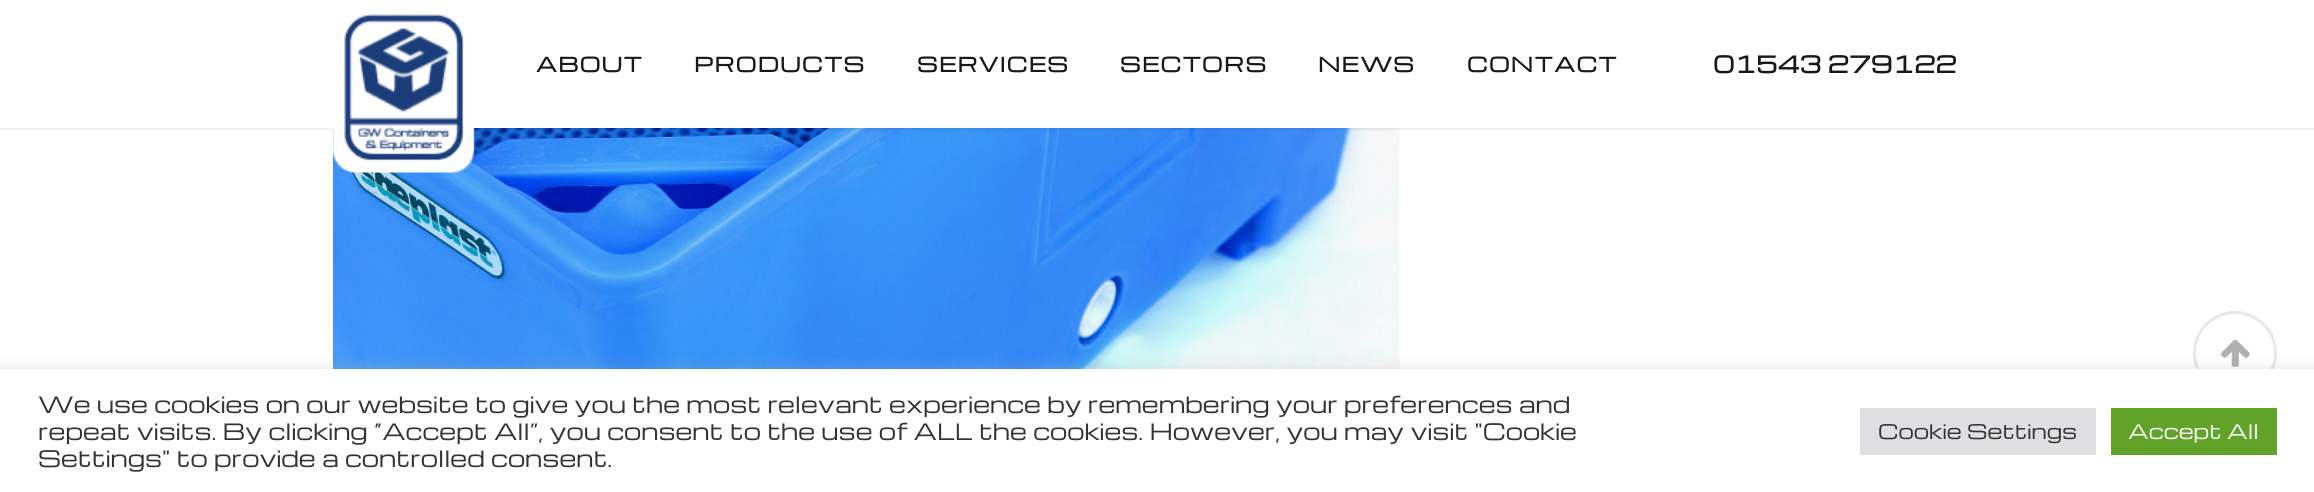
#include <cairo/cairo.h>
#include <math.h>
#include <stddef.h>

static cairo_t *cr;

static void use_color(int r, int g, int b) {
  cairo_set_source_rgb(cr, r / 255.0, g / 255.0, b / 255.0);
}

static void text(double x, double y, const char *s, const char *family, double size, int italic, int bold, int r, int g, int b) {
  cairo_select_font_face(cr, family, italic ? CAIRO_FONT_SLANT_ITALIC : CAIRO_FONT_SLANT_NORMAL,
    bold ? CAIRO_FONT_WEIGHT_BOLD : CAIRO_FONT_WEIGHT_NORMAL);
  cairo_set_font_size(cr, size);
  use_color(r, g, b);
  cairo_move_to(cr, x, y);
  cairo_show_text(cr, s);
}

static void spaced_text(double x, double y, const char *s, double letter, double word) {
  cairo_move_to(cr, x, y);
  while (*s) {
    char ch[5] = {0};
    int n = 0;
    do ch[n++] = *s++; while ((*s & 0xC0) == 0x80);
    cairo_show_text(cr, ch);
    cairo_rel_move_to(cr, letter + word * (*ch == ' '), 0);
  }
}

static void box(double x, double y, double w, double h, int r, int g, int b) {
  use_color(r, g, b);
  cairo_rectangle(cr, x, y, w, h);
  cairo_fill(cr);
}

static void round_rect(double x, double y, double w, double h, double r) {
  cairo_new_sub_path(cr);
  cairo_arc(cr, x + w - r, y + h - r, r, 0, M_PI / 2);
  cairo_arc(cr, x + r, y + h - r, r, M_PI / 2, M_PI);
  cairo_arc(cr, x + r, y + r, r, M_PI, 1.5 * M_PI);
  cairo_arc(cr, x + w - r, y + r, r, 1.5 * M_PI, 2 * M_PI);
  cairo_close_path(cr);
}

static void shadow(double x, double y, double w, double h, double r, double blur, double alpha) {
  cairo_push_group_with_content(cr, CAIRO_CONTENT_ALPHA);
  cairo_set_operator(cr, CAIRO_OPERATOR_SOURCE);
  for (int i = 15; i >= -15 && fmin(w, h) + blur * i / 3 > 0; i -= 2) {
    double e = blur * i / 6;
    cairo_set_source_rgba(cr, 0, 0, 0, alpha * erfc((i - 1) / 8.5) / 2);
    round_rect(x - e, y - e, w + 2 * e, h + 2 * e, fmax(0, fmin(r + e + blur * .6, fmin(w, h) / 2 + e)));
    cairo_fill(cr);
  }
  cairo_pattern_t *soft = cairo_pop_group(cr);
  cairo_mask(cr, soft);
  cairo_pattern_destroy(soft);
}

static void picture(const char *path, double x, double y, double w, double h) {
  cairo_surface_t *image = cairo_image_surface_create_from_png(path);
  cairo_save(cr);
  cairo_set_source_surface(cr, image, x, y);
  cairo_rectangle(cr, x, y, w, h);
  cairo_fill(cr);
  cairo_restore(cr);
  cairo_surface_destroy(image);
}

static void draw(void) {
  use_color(255, 255, 255);
  cairo_paint(cr);
  picture("img_02.png", 333, 128, 1067, 241);
  use_color(0, 0, 0);
  shadow(0, 2, 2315, 127, 0, 2, 0.11);
  box(0, 0, 2314, 128, 255, 255, 255);
  picture("img_01.png", 333, 14, 143, 159);
  cairo_arc(cr, 2235, 353, 40.5, 0, 2 * M_PI);
  use_color(232, 232, 232);
  cairo_set_line_width(cr, 3);
  cairo_stroke(cr);
  picture("img_03.png", 2221, 339, 29, 28);
  use_color(172, 171, 171);
  shadow(0, 368, 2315, 123, 0, 7.5, 0.3);
  box(0, 369, 2314, 123, 255, 255, 255);
  box(1860, 408, 236, 47, 222, 223, 224);
  box(2111, 408, 166, 47, 97, 162, 41);
  cairo_select_font_face(cr, "Michroma", CAIRO_FONT_SLANT_NORMAL, CAIRO_FONT_WEIGHT_BOLD);
  cairo_set_font_size(cr, 19.5);
  use_color(26, 23, 28);
  spaced_text(536, 72, "ABOUT", 1.5, 0);
  spaced_text(694, 72, "PRODUCTS", 1.5, 0);
  spaced_text(917, 72, "SERVICES", 1.5, 0);
  spaced_text(1120, 72, "SECTORS", 1.5, 0);
  spaced_text(1318, 72, "NEWS", 1.5, 0);
  spaced_text(1467, 72, "CONTACT", 1.5, 0);
  text(1713, 73, "01543 279122", "Michroma", 22.5, 0, 1, 26, 23, 28);
  text(38, 413, "We use cookies on our website to give you the most relevant experience by remembering your preferences and", "Michroma", 22, 0, 0, 51, 51, 51);
  text(38, 440, "repeat visits. By clicking “Accept All”, you consent to the use of ALL the cookies. However, you may visit \"Cookie", "Michroma", 22, 0, 0, 51, 51, 51);
  text(38, 467, "Settings\" to provide a controlled consent.", "Michroma", 22, 0, 0, 51, 51, 51);
  text(1878, 439, "Cookie Settings", "Michroma", 19.5, 0, 0, 51, 51, 51);
  text(2128, 439, "Accept All", "Michroma", 19.5, 0, 0, 255, 255, 255);
}

int main(void) {
  cairo_surface_t *surface = cairo_image_surface_create(CAIRO_FORMAT_RGB24, 2314, 492);
  cr = cairo_create(surface);
  cairo_font_options_t *options = cairo_font_options_create();
  cairo_font_options_set_hint_metrics(options, CAIRO_HINT_METRICS_OFF);
  cairo_font_options_set_hint_style(options, CAIRO_HINT_STYLE_NONE);
  cairo_set_font_options(cr, options);
  cairo_set_miter_limit(cr, 4);
  draw();
  cairo_surface_write_to_png(surface, "out.png");
  cairo_font_options_destroy(options);
  cairo_destroy(cr);
  cairo_surface_destroy(surface);
  return 0;
}
